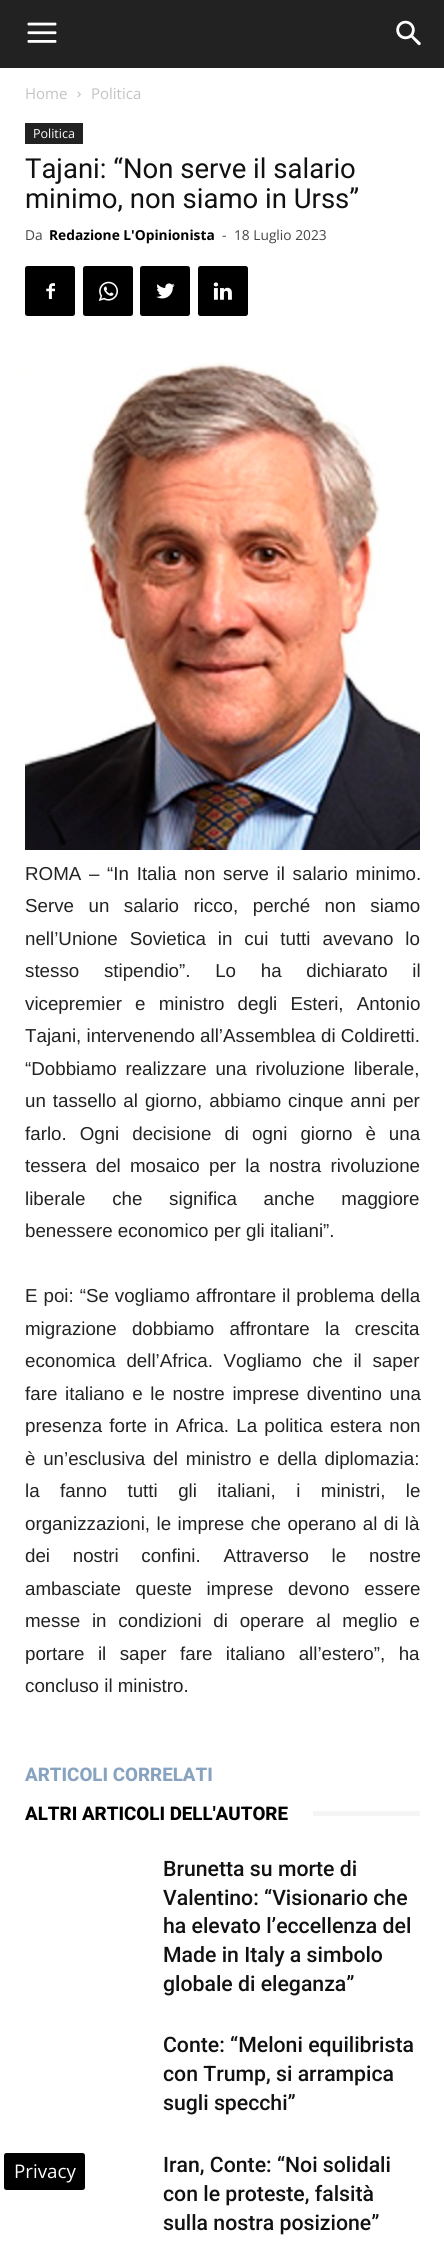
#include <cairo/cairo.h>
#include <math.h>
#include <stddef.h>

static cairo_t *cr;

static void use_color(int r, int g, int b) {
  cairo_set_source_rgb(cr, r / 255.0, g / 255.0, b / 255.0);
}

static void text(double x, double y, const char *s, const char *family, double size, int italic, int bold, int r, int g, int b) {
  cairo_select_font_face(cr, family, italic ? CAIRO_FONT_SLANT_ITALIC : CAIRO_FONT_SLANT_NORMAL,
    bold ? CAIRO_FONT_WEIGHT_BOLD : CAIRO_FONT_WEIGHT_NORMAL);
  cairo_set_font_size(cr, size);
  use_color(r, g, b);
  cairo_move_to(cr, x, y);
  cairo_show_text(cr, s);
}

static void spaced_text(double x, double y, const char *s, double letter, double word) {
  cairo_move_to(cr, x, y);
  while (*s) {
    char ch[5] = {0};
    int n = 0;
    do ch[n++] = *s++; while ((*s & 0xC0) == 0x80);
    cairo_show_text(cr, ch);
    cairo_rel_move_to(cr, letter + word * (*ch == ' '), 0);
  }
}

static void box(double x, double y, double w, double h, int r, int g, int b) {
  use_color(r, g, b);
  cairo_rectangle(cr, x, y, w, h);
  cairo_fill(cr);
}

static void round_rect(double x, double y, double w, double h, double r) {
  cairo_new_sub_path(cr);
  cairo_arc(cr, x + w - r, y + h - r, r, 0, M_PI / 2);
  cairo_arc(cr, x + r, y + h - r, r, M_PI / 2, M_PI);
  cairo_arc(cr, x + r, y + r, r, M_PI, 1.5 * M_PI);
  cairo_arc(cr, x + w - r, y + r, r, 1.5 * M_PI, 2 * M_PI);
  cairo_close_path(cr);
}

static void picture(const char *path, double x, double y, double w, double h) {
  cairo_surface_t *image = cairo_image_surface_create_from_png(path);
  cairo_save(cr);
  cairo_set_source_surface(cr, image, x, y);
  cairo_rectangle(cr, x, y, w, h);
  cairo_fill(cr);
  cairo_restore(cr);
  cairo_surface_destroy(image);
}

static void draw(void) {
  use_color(255, 255, 255);
  cairo_paint(cr);
  box(0, 0, 444, 68, 34, 34, 34);
  picture("img_01.png", 27, 22, 30, 21);
  picture("img_02.png", 396, 20, 25, 26);
  picture("img_03.png", 77, 91, 4, 7);
  box(25, 123, 58, 21, 34, 34, 34);
  use_color(0, 0, 0);
  round_rect(25, 266, 50, 50, 2.5);
  cairo_fill(cr);
  picture("img_04.png", 46, 283, 9, 16);
  round_rect(83, 266, 50, 50, 2.5);
  cairo_fill(cr);
  picture("img_05.png", 98, 281, 20, 20);
  round_rect(140, 266, 50, 50, 2.5);
  cairo_fill(cr);
  picture("img_06.png", 156, 283, 19, 16);
  round_rect(198, 266, 50, 50, 2.5);
  cairo_fill(cr);
  picture("img_07.png", 213, 282, 19, 18);
  picture("img_08.png", 25, 362, 395, 488);
  box(313, 1811, 107, 5, 245, 245, 245);
  use_color(0, 0, 0);
  round_rect(4, 2153, 81, 37, 2.5);
  cairo_fill(cr);
  text(25, 99, "Home", "Open Sans", 15, 0, 0, 195, 195, 195);
  text(91, 99, "Politica", "Open Sans", 15, 0, 0, 195, 195, 195);
  text(33, 138, "Politica", "Open Sans", 12.5, 0, 0, 255, 255, 255);
  text(25, 178, "Tajani: “Non serve il salario", "Roboto", 27.5, 0, 0, 17, 17, 17);
  text(25, 208, "minimo, non siamo in Urss”", "Roboto", 27.5, 0, 0, 17, 17, 17);
  text(25, 240, "Da", "Open Sans", 13.75, 0, 0, 68, 68, 68);
  text(49, 240, "Redazione L'Opinionista", "Open Sans", 13.75, 0, 1, 0, 0, 0);
  text(222, 240, "-", "Open Sans", 13.75, 0, 0, 68, 68, 68);
  text(234, 240, "18 Luglio 2023", "Open Sans", 13.75, 0, 0, 68, 68, 68);
  cairo_select_font_face(cr, "Liberation Sans", CAIRO_FONT_SLANT_NORMAL, CAIRO_FONT_WEIGHT_NORMAL);
  cairo_set_font_size(cr, 18.75);
  use_color(34, 34, 34);
  spaced_text(25, 880, "ROMA – “In Italia non serve il salario minimo.", 0, 2.5);
  spaced_text(25, 912, "Serve un salario ricco, perché non siamo", 0, 9.25);
  spaced_text(25, 945, "nell’Unione Sovietica in cui tutti avevano lo", 0, 6.75);
  spaced_text(25, 977, "stesso stipendio”. Lo ha dichiarato il", 0, 19.5);
  spaced_text(25, 1010, "vicepremier e ministro degli Esteri, Antonio", 0, 8);
  text(25, 1042, "Tajani, intervenendo all’Assemblea di Coldiretti.", "Liberation Sans", 18.75, 0, 0, 34, 34, 34);
  spaced_text(25, 1075, "“Dobbiamo realizzare una rivoluzione liberale,", 0, 3.5);
  spaced_text(25, 1107, "un tassello al giorno, abbiamo cinque anni per", 0, 1.75);
  spaced_text(25, 1140, "farlo. Ogni decisione di ogni giorno è una", 0, 7.75);
  spaced_text(25, 1172, "tessera del mosaico per la nostra rivoluzione", 0, 4);
  spaced_text(25, 1205, "liberale che significa anche maggiore", 0, 21.5);
  text(25, 1237, "benessere economico per gli italiani”.", "Liberation Sans", 18.75, 0, 0, 34, 34, 34);
  spaced_text(25, 1302, "E poi: “Se vogliamo affrontare il problema della", 0, 0.75);
  spaced_text(25, 1335, "migrazione dobbiamo affrontare la crescita", 0, 10);
  spaced_text(25, 1367, "economica dell’Africa. Vogliamo che il saper", 0, 5.5);
  spaced_text(25, 1400, "fare italiano e le nostre imprese diventino una", 0, 2.5);
  spaced_text(25, 1432, "presenza forte in Africa. La politica estera non", 0, 2);
  spaced_text(25, 1465, "è un’esclusiva del ministro e della diplomazia:", 0, 2.5);
  spaced_text(25, 1497, "la fanno tutti gli italiani, i ministri, le", 0, 15.25);
  spaced_text(25, 1530, "organizzazioni, le imprese che operano al di là", 0, 1.25);
  spaced_text(25, 1562, "dei nostri confini. Attraverso le nostre", 0, 17.5);
  spaced_text(25, 1595, "ambasciate queste imprese devono essere", 0, 9.5);
  spaced_text(25, 1627, "messe in condizioni di operare al meglio e", 0, 6.5);
  spaced_text(25, 1660, "portare il saper fare italiano all’estero”, ha", 0, 8.25);
  text(25, 1692, "concluso il ministro.", "Liberation Sans", 18.75, 0, 0, 34, 34, 34);
  text(25, 1781, "ARTICOLI CORRELATI", "Roboto ExtraBold", 18.75, 0, 0, 135, 163, 191);
  text(25, 1820, "ALTRI ARTICOLI DELL'AUTORE", "Roboto ExtraBold", 18.75, 0, 0, 0, 0, 0);
  text(163, 1876, "Brunetta su morte di", "Roboto Medium", 21.25, 0, 0, 17, 17, 17);
  text(163, 1905, "Valentino: “Visionario che", "Roboto Medium", 21.25, 0, 0, 17, 17, 17);
  text(163, 1933, "ha elevato l’eccellenza del", "Roboto Medium", 21.25, 0, 0, 17, 17, 17);
  text(163, 1962, "Made in Italy a simbolo", "Roboto Medium", 21.25, 0, 0, 17, 17, 17);
  text(163, 1991, "globale di eleganza”", "Roboto Medium", 21.25, 0, 0, 17, 17, 17);
  text(163, 2052, "Conte: “Meloni equilibrista", "Roboto Medium", 21.25, 0, 0, 17, 17, 17);
  text(163, 2081, "con Trump, si arrampica", "Roboto Medium", 21.25, 0, 0, 17, 17, 17);
  text(163, 2110, "sugli specchi”", "Roboto Medium", 21.25, 0, 0, 17, 17, 17);
  text(163, 2172, "Iran, Conte: “Noi solidali", "Roboto Medium", 21.25, 0, 0, 17, 17, 17);
  text(163, 2201, "con le proteste, falsità", "Roboto Medium", 21.25, 0, 0, 17, 17, 17);
  text(163, 2230, "sulla nostra posizione”", "Roboto Medium", 21.25, 0, 0, 17, 17, 17);
  text(14, 2178, "Privacy", "Open Sans", 18.75, 0, 0, 255, 255, 255);
}

int main(void) {
  cairo_surface_t *surface = cairo_image_surface_create(CAIRO_FORMAT_RGB24, 444, 2258);
  cr = cairo_create(surface);
  cairo_font_options_t *options = cairo_font_options_create();
  cairo_font_options_set_hint_metrics(options, CAIRO_HINT_METRICS_OFF);
  cairo_font_options_set_hint_style(options, CAIRO_HINT_STYLE_NONE);
  cairo_set_font_options(cr, options);
  cairo_set_miter_limit(cr, 4);
  draw();
  cairo_surface_write_to_png(surface, "out.png");
  cairo_font_options_destroy(options);
  cairo_destroy(cr);
  cairo_surface_destroy(surface);
  return 0;
}
